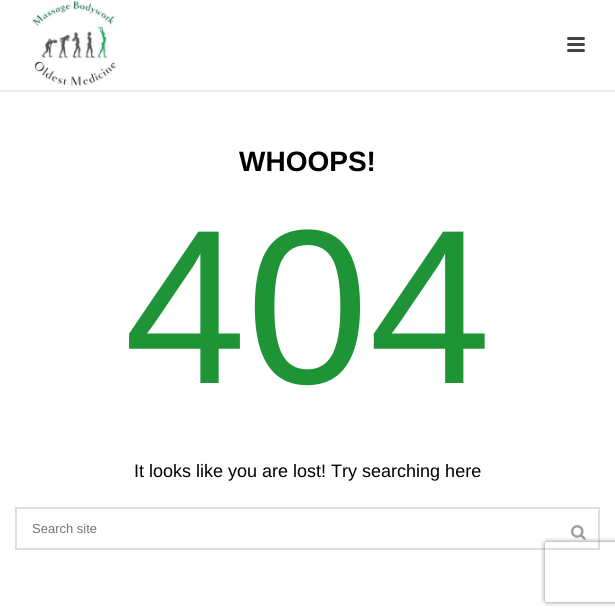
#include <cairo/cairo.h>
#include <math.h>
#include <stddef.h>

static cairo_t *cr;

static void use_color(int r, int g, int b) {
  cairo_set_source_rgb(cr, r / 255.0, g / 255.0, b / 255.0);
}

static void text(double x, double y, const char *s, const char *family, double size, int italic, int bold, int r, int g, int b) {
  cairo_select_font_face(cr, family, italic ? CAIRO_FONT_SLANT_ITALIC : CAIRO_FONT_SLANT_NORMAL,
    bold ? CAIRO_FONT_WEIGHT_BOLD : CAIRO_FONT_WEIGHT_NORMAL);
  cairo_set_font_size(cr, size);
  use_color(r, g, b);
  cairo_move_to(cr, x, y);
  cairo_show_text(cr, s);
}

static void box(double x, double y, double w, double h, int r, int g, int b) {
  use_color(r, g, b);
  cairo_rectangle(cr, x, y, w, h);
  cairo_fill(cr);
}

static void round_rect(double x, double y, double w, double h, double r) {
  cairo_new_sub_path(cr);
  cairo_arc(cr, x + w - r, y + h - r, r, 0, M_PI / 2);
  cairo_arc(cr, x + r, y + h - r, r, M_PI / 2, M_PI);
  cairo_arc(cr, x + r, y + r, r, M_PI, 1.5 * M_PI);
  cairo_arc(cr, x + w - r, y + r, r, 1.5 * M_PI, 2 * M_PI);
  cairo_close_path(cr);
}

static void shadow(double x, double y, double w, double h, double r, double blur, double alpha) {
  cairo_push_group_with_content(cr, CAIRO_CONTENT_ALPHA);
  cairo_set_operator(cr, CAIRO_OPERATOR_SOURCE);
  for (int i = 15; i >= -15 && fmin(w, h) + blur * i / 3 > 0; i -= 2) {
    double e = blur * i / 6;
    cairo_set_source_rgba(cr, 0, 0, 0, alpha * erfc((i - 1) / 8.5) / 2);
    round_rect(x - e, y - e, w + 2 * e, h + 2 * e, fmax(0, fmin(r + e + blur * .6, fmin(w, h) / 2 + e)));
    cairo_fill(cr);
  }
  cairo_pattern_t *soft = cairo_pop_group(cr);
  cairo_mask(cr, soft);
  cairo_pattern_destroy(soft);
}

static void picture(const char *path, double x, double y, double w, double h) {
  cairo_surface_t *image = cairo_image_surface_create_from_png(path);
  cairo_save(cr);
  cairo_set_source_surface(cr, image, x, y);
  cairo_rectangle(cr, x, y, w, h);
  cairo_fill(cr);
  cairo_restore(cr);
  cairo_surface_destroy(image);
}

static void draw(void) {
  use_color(255, 255, 255);
  cairo_paint(cr);
  box(0, 90, 615, 2, 237, 237, 237);
  picture("img_01.png", 31, 0, 86, 86);
  use_color(68, 68, 68);
  round_rect(567, 37, 18, 3, 1.5);
  cairo_fill(cr);
  round_rect(567, 43, 18, 3, 1.5);
  cairo_fill(cr);
  round_rect(567, 49, 18, 3, 1.5);
  cairo_fill(cr);
  cairo_rectangle(cr, 16, 508, 583, 41);
  use_color(223, 223, 223);
  cairo_stroke(cr);
  picture("img_02.png", 571, 525, 15, 15);
  cairo_save(cr);
  cairo_set_fill_rule(cr, CAIRO_FILL_RULE_EVEN_ODD);
  cairo_new_path(cr);
  cairo_move_to(cr, 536, 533);
  cairo_line_to(cr, 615, 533);
  cairo_line_to(cr, 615, 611);
  cairo_line_to(cr, 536, 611);
  cairo_close_path(cr);
  cairo_move_to(cr, 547, 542);
  cairo_line_to(cr, 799, 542);
  cairo_curve_to(cr, 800, 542, 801, 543, 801, 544);
  cairo_line_to(cr, 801, 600);
  cairo_curve_to(cr, 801, 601, 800, 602, 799, 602);
  cairo_line_to(cr, 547, 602);
  cairo_curve_to(cr, 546, 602, 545, 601, 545, 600);
  cairo_line_to(cr, 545, 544);
  cairo_curve_to(cr, 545, 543, 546, 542, 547, 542);
  cairo_close_path(cr);
  cairo_clip(cr);
  use_color(128, 128, 128);
  shadow(545, 542, 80, 60, 2, 2.5, 1);
  cairo_restore(cr);
  text(239, 171, "WHOOPS!", "Liberation Sans", 28, 0, 1, 0, 0, 0);
  text(124, 383, "404", "Liberation Sans", 220, 0, 0, 30, 148, 55);
  text(134, 477, "It looks like you are lost! Try searching here", "Liberation Sans", 18, 0, 0, 0, 0, 0);
  text(32, 533, "Search site", "Liberation Sans", 13, 0, 0, 117, 117, 117);
}

int main(void) {
  cairo_surface_t *surface = cairo_image_surface_create(CAIRO_FORMAT_RGB24, 615, 616);
  cr = cairo_create(surface);
  cairo_font_options_t *options = cairo_font_options_create();
  cairo_font_options_set_hint_metrics(options, CAIRO_HINT_METRICS_OFF);
  cairo_font_options_set_hint_style(options, CAIRO_HINT_STYLE_NONE);
  cairo_set_font_options(cr, options);
  cairo_set_miter_limit(cr, 4);
  draw();
  cairo_surface_write_to_png(surface, "out.png");
  cairo_font_options_destroy(options);
  cairo_destroy(cr);
  cairo_surface_destroy(surface);
  return 0;
}
